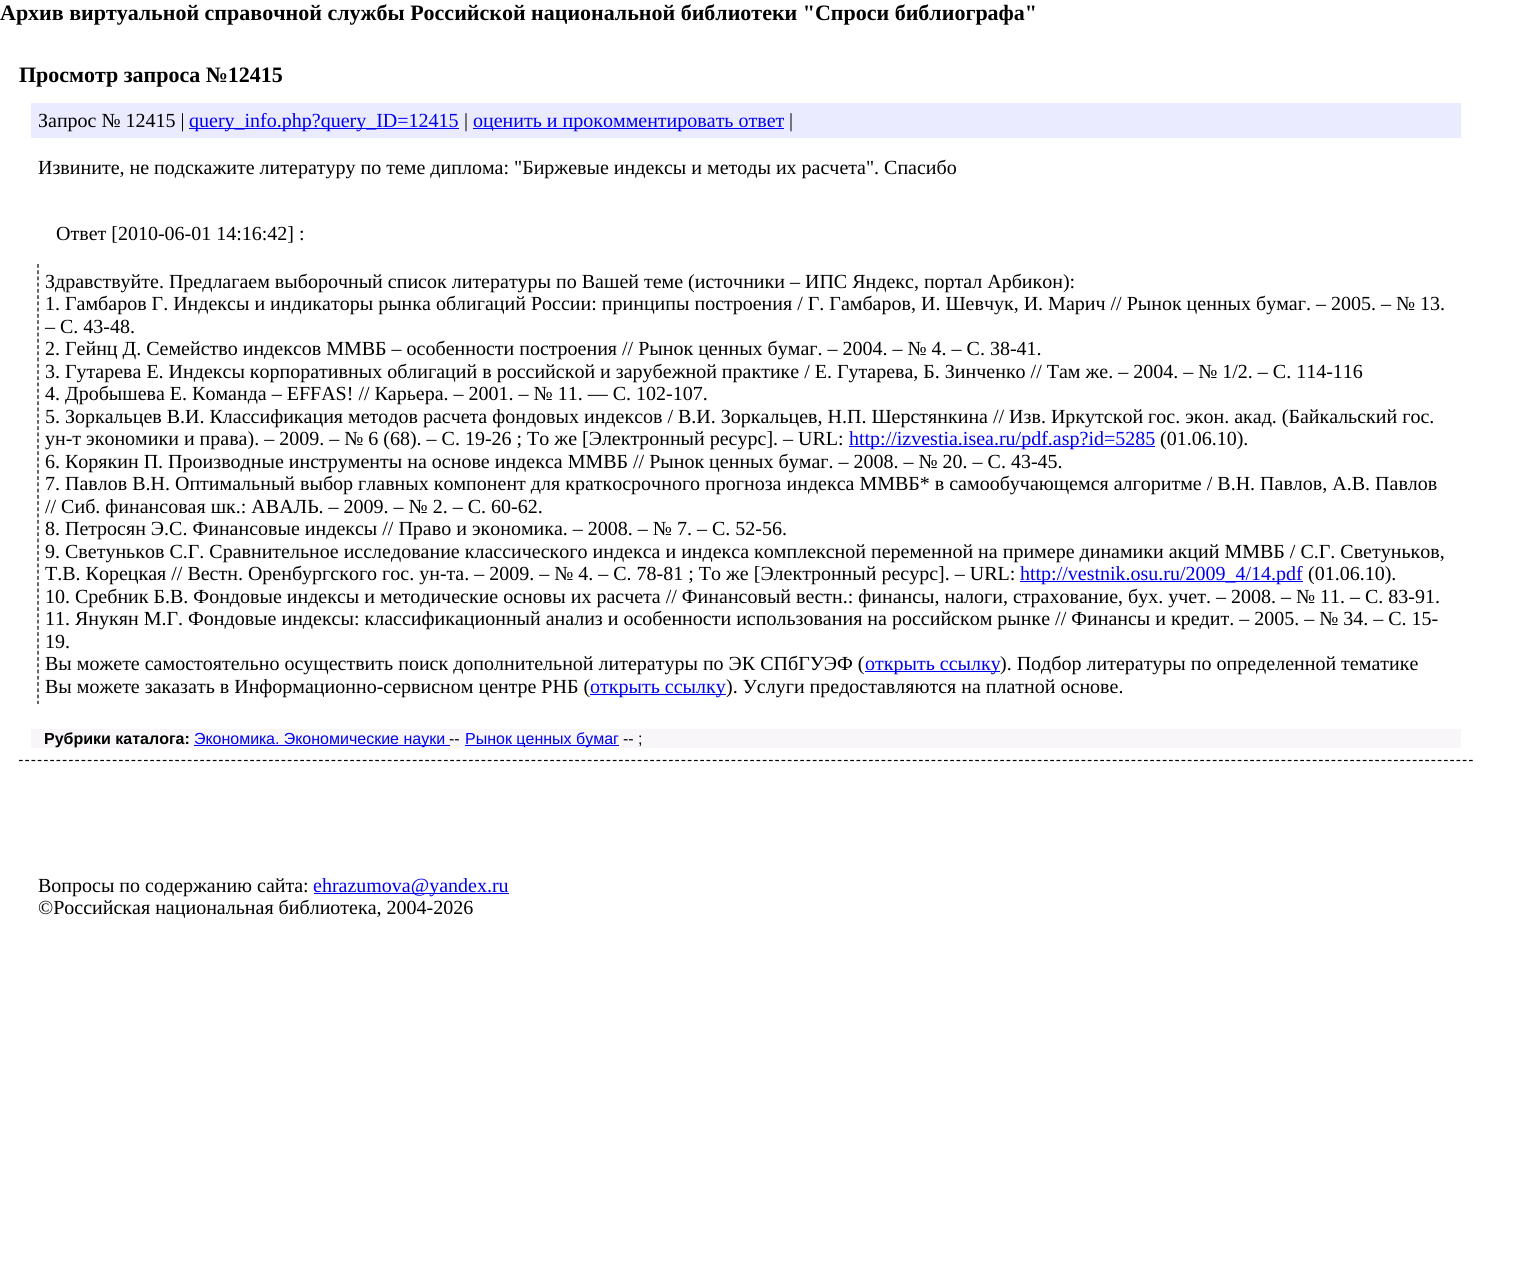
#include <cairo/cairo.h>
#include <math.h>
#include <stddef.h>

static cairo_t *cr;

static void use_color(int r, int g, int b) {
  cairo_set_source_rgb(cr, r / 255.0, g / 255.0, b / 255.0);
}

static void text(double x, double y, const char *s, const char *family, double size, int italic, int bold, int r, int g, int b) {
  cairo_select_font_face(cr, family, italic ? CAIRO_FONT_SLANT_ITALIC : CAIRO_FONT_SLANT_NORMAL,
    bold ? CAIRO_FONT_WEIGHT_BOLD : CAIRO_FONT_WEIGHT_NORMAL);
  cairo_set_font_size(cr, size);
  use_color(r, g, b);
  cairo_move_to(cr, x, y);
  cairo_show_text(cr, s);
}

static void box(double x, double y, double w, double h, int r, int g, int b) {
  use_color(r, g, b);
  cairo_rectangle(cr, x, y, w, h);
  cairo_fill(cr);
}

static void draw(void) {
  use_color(255, 255, 255);
  cairo_paint(cr);
  cairo_new_path(cr);
  cairo_move_to(cr, 19, 760.5);
  cairo_line_to(cr, 1474, 760.5);
  use_color(0, 0, 0);
  cairo_set_line_width(cr, 1.2);
  cairo_set_dash(cr, (double[]){3.75, 2.5}, 2, 0);
  cairo_stroke(cr);
  box(31, 103, 1430, 35, 235, 235, 255);
  box(189, 128, 270, 1, 0, 0, 238);
  box(473, 128, 311, 1, 0, 0, 238);
  cairo_new_path(cr);
  cairo_move_to(cr, 38, 264);
  cairo_line_to(cr, 38, 704);
  use_color(0, 0, 0);
  cairo_set_dash(cr, (double[]){3.75, 2.49}, 2, 0);
  cairo_stroke(cr);
  box(849, 446, 306, 1, 0, 0, 238);
  box(1020, 581, 283, 1, 0, 0, 238);
  box(865, 671, 135, 1, 0, 0, 238);
  box(590, 694, 136, 1, 0, 0, 238);
  box(31, 729, 1430, 19, 248, 246, 248);
  box(194, 745, 256, 1, 0, 0, 238);
  box(465, 745, 154, 1, 0, 0, 238);
  box(314, 893, 195, 1, 0, 0, 238);
  text(0, 20, "Архив виртуальной справочной службы Российской национальной библиотеки \"Спроси библиографа\"", "Liberation Serif", 22, 0, 1, 0, 0, 0);
  text(19, 82, "Просмотр запроса №12415", "Liberation Serif", 22, 0, 1, 0, 0, 0);
  text(38, 127, "Запрос № 12415 |", "Liberation Serif", 20, 0, 0, 0, 0, 0);
  text(189, 127, "query_info.php?query_ID=12415", "Liberation Serif", 20, 0, 0, 0, 0, 238);
  text(464, 127, "|", "Liberation Serif", 20, 0, 0, 0, 0, 0);
  text(473, 127, "оценить и прокомментировать ответ", "Liberation Serif", 20, 0, 0, 0, 0, 238);
  text(789, 127, "|", "Liberation Serif", 20, 0, 0, 0, 0, 0);
  text(38, 174, "Извините, не подскажите литературу по теме диплома: \"Биржевые индексы и методы их расчета\". Спасибо", "Liberation Serif", 20, 0, 0, 0, 0, 0);
  text(56, 240, "Ответ [2010-06-01 14:16:42] :", "Liberation Serif", 20, 0, 0, 0, 0, 0);
  text(45, 288, "Здравствуйте. Предлагаем выборочный список литературы по Вашей теме (источники – ИПС Яндекс, портал Арбикон):", "Liberation Serif", 20, 0, 0, 0, 0, 0);
  text(45, 310, "1. Гамбаров Г. Индексы и индикаторы рынка облигаций России: принципы построения / Г. Гамбаров, И. Шевчук, И. Марич // Рынок ценных бумаг. – 2005. – № 13.", "Liberation Serif", 20, 0, 0, 0, 0, 0);
  text(45, 333, "– С. 43-48.", "Liberation Serif", 20, 0, 0, 0, 0, 0);
  text(45, 355, "2. Гейнц Д. Семейство индексов ММВБ – особенности построения // Рынок ценных бумаг. – 2004. – № 4. – С. 38-41.", "Liberation Serif", 20, 0, 0, 0, 0, 0);
  text(45, 378, "3. Гутарева Е. Индексы корпоративных облигаций в российской и зарубежной практике / Е. Гутарева, Б. Зинченко // Там же. – 2004. – № 1/2. – С. 114-116", "Liberation Serif", 20, 0, 0, 0, 0, 0);
  text(45, 400, "4. Дробышева Е. Команда – EFFAS! // Карьера. – 2001. – № 11. — С. 102-107.", "Liberation Serif", 20, 0, 0, 0, 0, 0);
  text(45, 423, "5. Зоркальцев В.И. Классификация методов расчета фондовых индексов / В.И. Зоркальцев, Н.П. Шерстянкина // Изв. Иркутской гос. экон. акад. (Байкальский гос.", "Liberation Serif", 20, 0, 0, 0, 0, 0);
  text(45, 445, "ун-т экономики и права). – 2009. – № 6 (68). – С. 19-26 ; То же [Электронный ресурс]. – URL:", "Liberation Serif", 20, 0, 0, 0, 0, 0);
  text(849, 445, "http://izvestia.isea.ru/pdf.asp?id=5285", "Liberation Serif", 20, 0, 0, 0, 0, 238);
  text(1160, 445, "(01.06.10).", "Liberation Serif", 20, 0, 0, 0, 0, 0);
  text(45, 468, "6. Корякин П. Производные инструменты на основе индекса ММВБ // Рынок ценных бумаг. – 2008. – № 20. – С. 43-45.", "Liberation Serif", 20, 0, 0, 0, 0, 0);
  text(45, 490, "7. Павлов В.Н. Оптимальный выбор главных компонент для краткосрочного прогноза индекса ММВБ* в самообучающемся алгоритме / В.Н. Павлов, А.В. Павлов", "Liberation Serif", 20, 0, 0, 0, 0, 0);
  text(45, 513, "// Сиб. финансовая шк.: АВАЛЬ. – 2009. – № 2. – С. 60-62.", "Liberation Serif", 20, 0, 0, 0, 0, 0);
  text(45, 535, "8. Петросян Э.С. Финансовые индексы // Право и экономика. – 2008. – № 7. – С. 52-56.", "Liberation Serif", 20, 0, 0, 0, 0, 0);
  text(45, 558, "9. Светуньков С.Г. Сравнительное исследование классического индекса и индекса комплексной переменной на примере динамики акций ММВБ / С.Г. Светуньков,", "Liberation Serif", 20, 0, 0, 0, 0, 0);
  text(45, 580, "Т.В. Корецкая // Вестн. Оренбургского гос. ун-та. – 2009. – № 4. – С. 78-81 ; То же [Электронный ресурс]. – URL:", "Liberation Serif", 20, 0, 0, 0, 0, 0);
  text(1020, 580, "http://vestnik.osu.ru/2009_4/14.pdf", "Liberation Serif", 20, 0, 0, 0, 0, 238);
  text(1308, 580, "(01.06.10).", "Liberation Serif", 20, 0, 0, 0, 0, 0);
  text(45, 603, "10. Сребник Б.В. Фондовые индексы и методические основы их расчета // Финансовый вестн.: финансы, налоги, страхование, бух. учет. – 2008. – № 11. – С. 83-91.", "Liberation Serif", 20, 0, 0, 0, 0, 0);
  text(45, 625, "11. Янукян М.Г. Фондовые индексы: классификационный анализ и особенности использования на российском рынке // Финансы и кредит. – 2005. – № 34. – С. 15-", "Liberation Serif", 20, 0, 0, 0, 0, 0);
  text(45, 648, "19.", "Liberation Serif", 20, 0, 0, 0, 0, 0);
  text(45, 670, "Вы можете самостоятельно осуществить поиск дополнительной литературы по ЭК СПбГУЭФ (", "Liberation Serif", 20, 0, 0, 0, 0, 0);
  text(865, 670, "открыть ссылку", "Liberation Serif", 20, 0, 0, 0, 0, 238);
  text(1000, 670, "). Подбор литературы по определенной тематике", "Liberation Serif", 20, 0, 0, 0, 0, 0);
  text(45, 693, "Вы можете заказать в Информационно-сервисном центре РНБ (", "Liberation Serif", 20, 0, 0, 0, 0, 0);
  text(590, 693, "открыть ссылку", "Liberation Serif", 20, 0, 0, 0, 0, 238);
  text(726, 693, "). Услуги предоставляются на платной основе.", "Liberation Serif", 20, 0, 0, 0, 0, 0);
  text(44, 744, "Рубрики каталога:", "Liberation Sans", 16, 0, 1, 0, 0, 0);
  text(194, 744, "Экономика. Экономические науки", "Liberation Sans", 16, 0, 0, 0, 0, 238);
  text(449, 744, "--", "Liberation Sans", 16, 0, 0, 0, 0, 0);
  text(465, 744, "Рынок ценных бумаг", "Liberation Sans", 16, 0, 0, 0, 0, 238);
  text(623, 744, "-- ;", "Liberation Sans", 16, 0, 0, 0, 0, 0);
  text(38, 892, "Вопросы по содержанию сайта:", "Liberation Serif", 20, 0, 0, 0, 0, 0);
  text(313, 892, "ehrazumova@yandex.ru", "Liberation Serif", 20, 0, 0, 0, 0, 238);
  text(38, 914, "©Российская национальная библиотека, 2004-2026", "Liberation Serif", 20, 0, 0, 0, 0, 0);
}

int main(void) {
  cairo_surface_t *surface = cairo_image_surface_create(CAIRO_FORMAT_RGB24, 1514, 1268);
  cr = cairo_create(surface);
  cairo_font_options_t *options = cairo_font_options_create();
  cairo_font_options_set_hint_metrics(options, CAIRO_HINT_METRICS_OFF);
  cairo_font_options_set_hint_style(options, CAIRO_HINT_STYLE_NONE);
  cairo_set_font_options(cr, options);
  cairo_set_miter_limit(cr, 4);
  draw();
  cairo_surface_write_to_png(surface, "out.png");
  cairo_font_options_destroy(options);
  cairo_destroy(cr);
  cairo_surface_destroy(surface);
  return 0;
}
